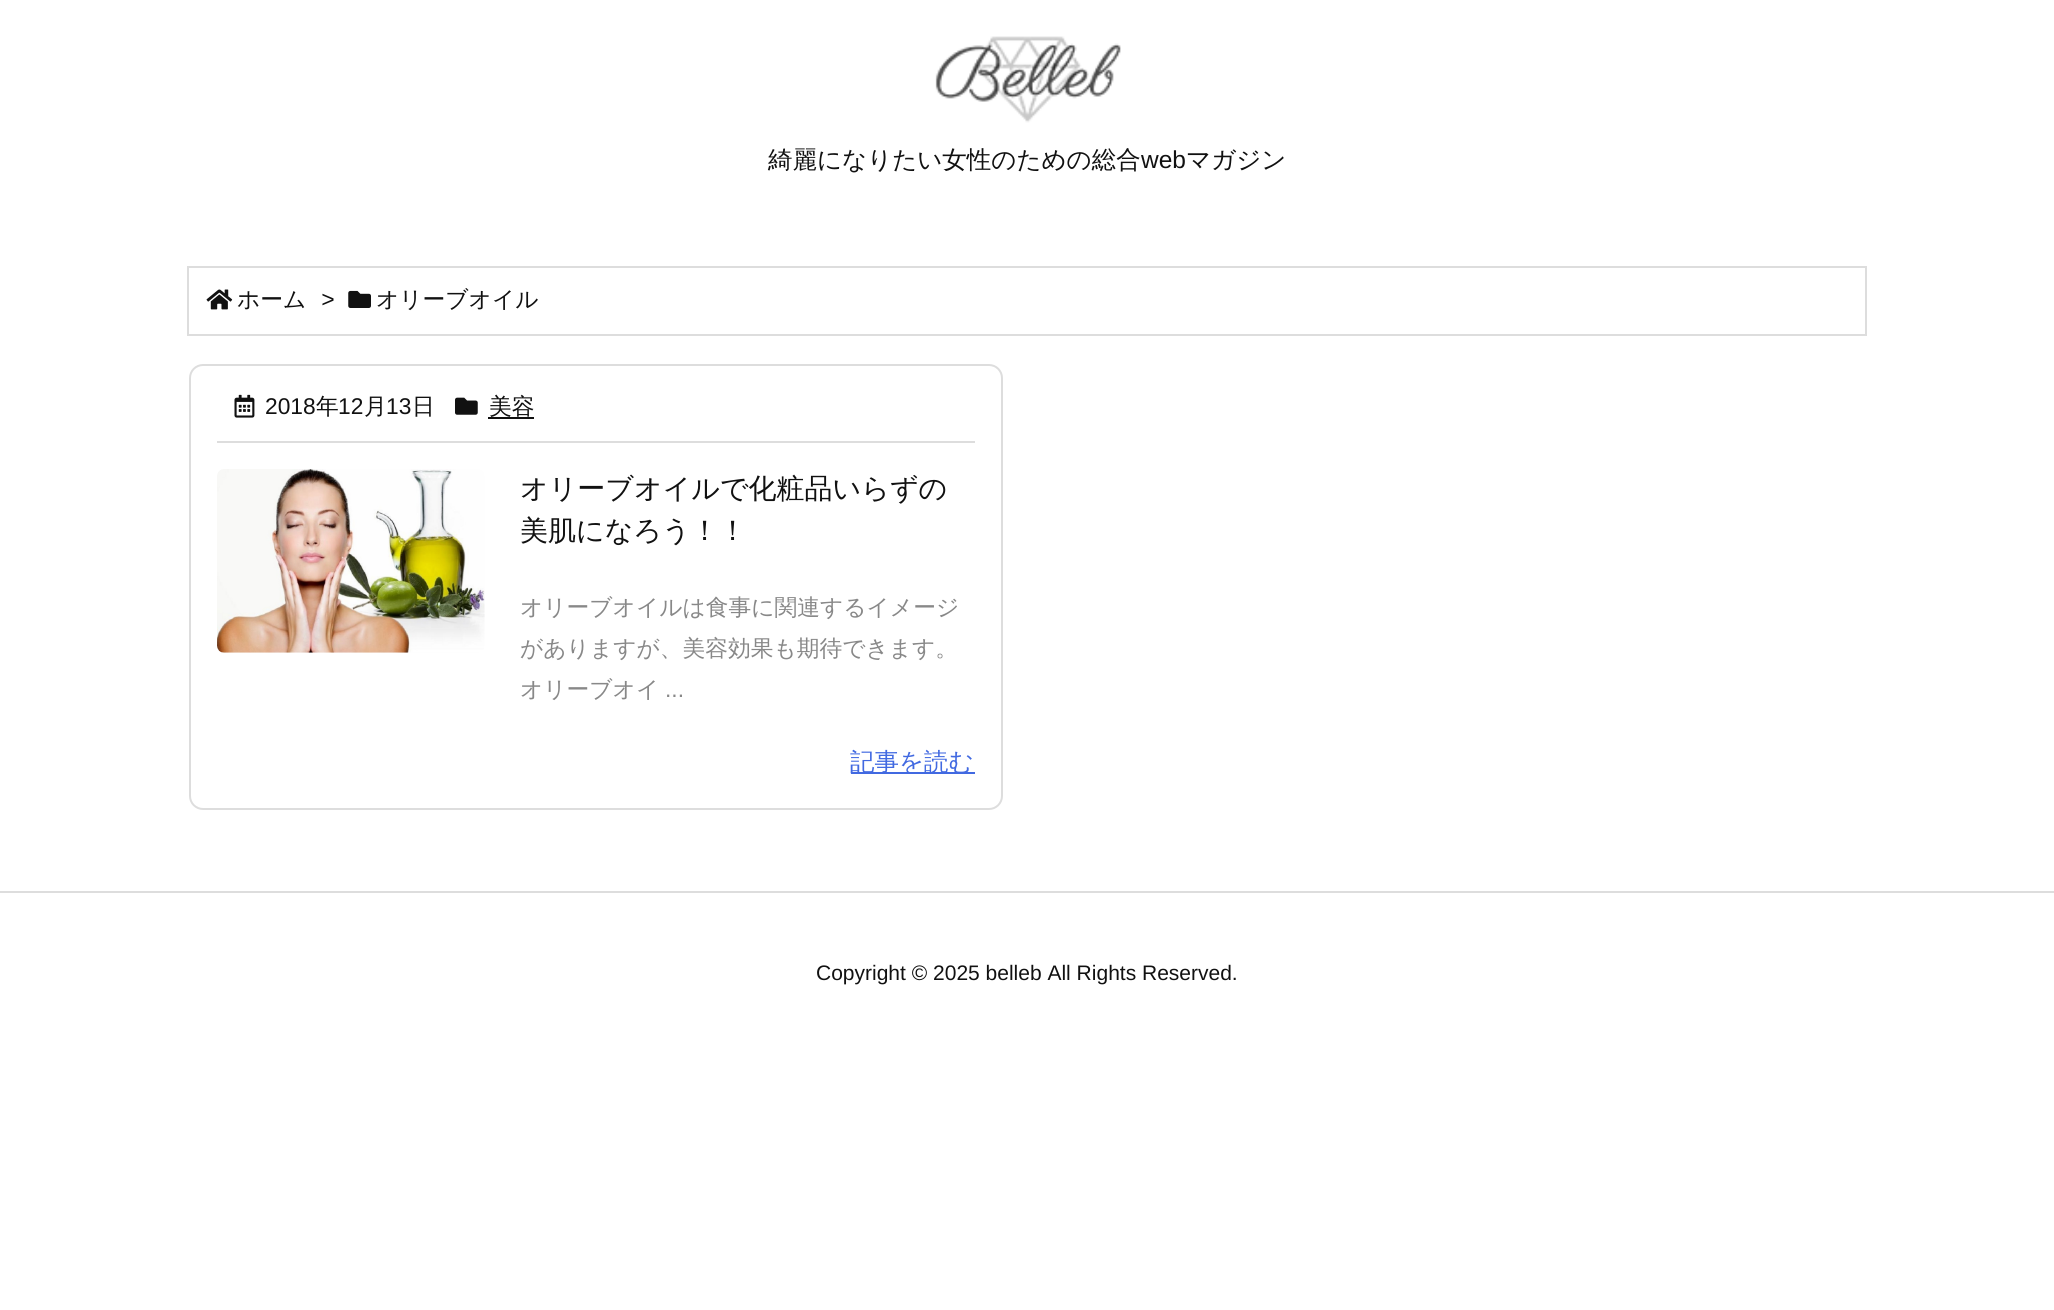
#include <cairo/cairo.h>
#include <math.h>
#include <stddef.h>

static cairo_t *cr;

static void use_color(int r, int g, int b) {
  cairo_set_source_rgb(cr, r / 255.0, g / 255.0, b / 255.0);
}

static void text(double x, double y, const char *s, const char *family, double size, int italic, int bold, int r, int g, int b) {
  cairo_select_font_face(cr, family, italic ? CAIRO_FONT_SLANT_ITALIC : CAIRO_FONT_SLANT_NORMAL,
    bold ? CAIRO_FONT_WEIGHT_BOLD : CAIRO_FONT_WEIGHT_NORMAL);
  cairo_set_font_size(cr, size);
  use_color(r, g, b);
  cairo_move_to(cr, x, y);
  cairo_show_text(cr, s);
}

static void box(double x, double y, double w, double h, int r, int g, int b) {
  use_color(r, g, b);
  cairo_rectangle(cr, x, y, w, h);
  cairo_fill(cr);
}

static void round_rect(double x, double y, double w, double h, double r) {
  cairo_new_sub_path(cr);
  cairo_arc(cr, x + w - r, y + h - r, r, 0, M_PI / 2);
  cairo_arc(cr, x + r, y + h - r, r, M_PI / 2, M_PI);
  cairo_arc(cr, x + r, y + r, r, M_PI, 1.5 * M_PI);
  cairo_arc(cr, x + w - r, y + r, r, 1.5 * M_PI, 2 * M_PI);
  cairo_close_path(cr);
}

static void picture(const char *path, double x, double y, double w, double h) {
  cairo_surface_t *image = cairo_image_surface_create_from_png(path);
  cairo_save(cr);
  cairo_set_source_surface(cr, image, x, y);
  cairo_rectangle(cr, x, y, w, h);
  cairo_fill(cr);
  cairo_restore(cr);
  cairo_surface_destroy(image);
}

static void draw(void) {
  use_color(255, 255, 255);
  cairo_paint(cr);
  picture("img_01.png", 935, 36, 186, 87);
  cairo_rectangle(cr, 188, 267, 1678, 68);
  use_color(221, 221, 221);
  cairo_stroke(cr);
  picture("img_02.png", 206, 289, 27, 21);
  picture("img_03.png", 348, 290, 23, 18);
  round_rect(190, 365, 812, 444, 13);
  cairo_stroke(cr);
  box(217, 441, 758, 2, 221, 221, 221);
  picture("img_04.png", 234, 394, 21, 24);
  picture("img_05.png", 455, 397, 23, 18);
  box(488, 417, 46, 2, 17, 17, 17);
  picture("img_06.png", 217, 469, 268, 184);
  box(851, 772, 124, 2, 65, 105, 225);
  box(0, 891, 2054, 2, 221, 221, 221);
  text(768, 168, "綺麗になりたい女性のための総合", "WenQuanYi Zen Hei Medium", 24.5, 0, 0, 17, 17, 17);
  text(1141, 168, "web", "Liberation Sans", 24.5, 0, 0, 17, 17, 17);
  text(1186, 168, "マガジン", "WenQuanYi Zen Hei Medium", 24.5, 0, 0, 17, 17, 17);
  text(237, 307, "ホーム", "WenQuanYi Zen Hei Medium", 22.75, 0, 0, 17, 17, 17);
  text(321, 307, ">", "Liberation Sans", 22.75, 1, 0, 17, 17, 17);
  text(376, 307, "オリーブオイル", "WenQuanYi Zen Hei Medium", 22.75, 0, 0, 17, 17, 17);
  text(265, 414, "2018", "Liberation Sans", 22.75, 0, 0, 17, 17, 17);
  text(316, 414, "年", "WenQuanYi Zen Hei Medium", 22.75, 0, 0, 17, 17, 17);
  text(338, 414, "12", "Liberation Sans", 22.75, 0, 0, 17, 17, 17);
  text(364, 414, "月", "WenQuanYi Zen Hei Medium", 22.75, 0, 0, 17, 17, 17);
  text(386, 414, "13", "Liberation Sans", 22.75, 0, 0, 17, 17, 17);
  text(412, 414, "日", "WenQuanYi Zen Hei Medium", 22.75, 0, 0, 17, 17, 17);
  text(489, 414, "美容", "WenQuanYi Zen Hei Medium", 22.75, 0, 0, 17, 17, 17);
  text(520, 498, "オリーブオイルで化粧品いらずの", "WenQuanYi Zen Hei Medium", 28, 0, 0, 17, 17, 17);
  text(520, 540, "美肌になろう！！", "WenQuanYi Zen Hei Medium", 28, 0, 0, 17, 17, 17);
  text(520, 615, "オリーブオイルは食事に関連するイメージ", "WenQuanYi Zen Hei Medium", 22.75, 0, 0, 136, 136, 136);
  text(520, 656, "がありますが、美容効果も期待できます。", "WenQuanYi Zen Hei Medium", 22.75, 0, 0, 136, 136, 136);
  text(520, 697, "オリーブオイ", "WenQuanYi Zen Hei Medium", 22.75, 0, 0, 136, 136, 136);
  text(665, 697, "...", "Liberation Sans", 22.75, 0, 0, 136, 136, 136);
  text(850, 770, "記事を読む", "WenQuanYi Zen Hei Medium", 24.5, 0, 0, 65, 105, 225);
  text(816, 980, "Copyright © 2025 belleb All Rights Reserved.", "Liberation Sans", 21, 0, 0, 17, 17, 17);
}

int main(void) {
  cairo_surface_t *surface = cairo_image_surface_create(CAIRO_FORMAT_RGB24, 2054, 1310);
  cr = cairo_create(surface);
  cairo_font_options_t *options = cairo_font_options_create();
  cairo_font_options_set_hint_metrics(options, CAIRO_HINT_METRICS_OFF);
  cairo_font_options_set_hint_style(options, CAIRO_HINT_STYLE_NONE);
  cairo_set_font_options(cr, options);
  cairo_set_miter_limit(cr, 4);
  draw();
  cairo_surface_write_to_png(surface, "out.png");
  cairo_font_options_destroy(options);
  cairo_destroy(cr);
  cairo_surface_destroy(surface);
  return 0;
}
